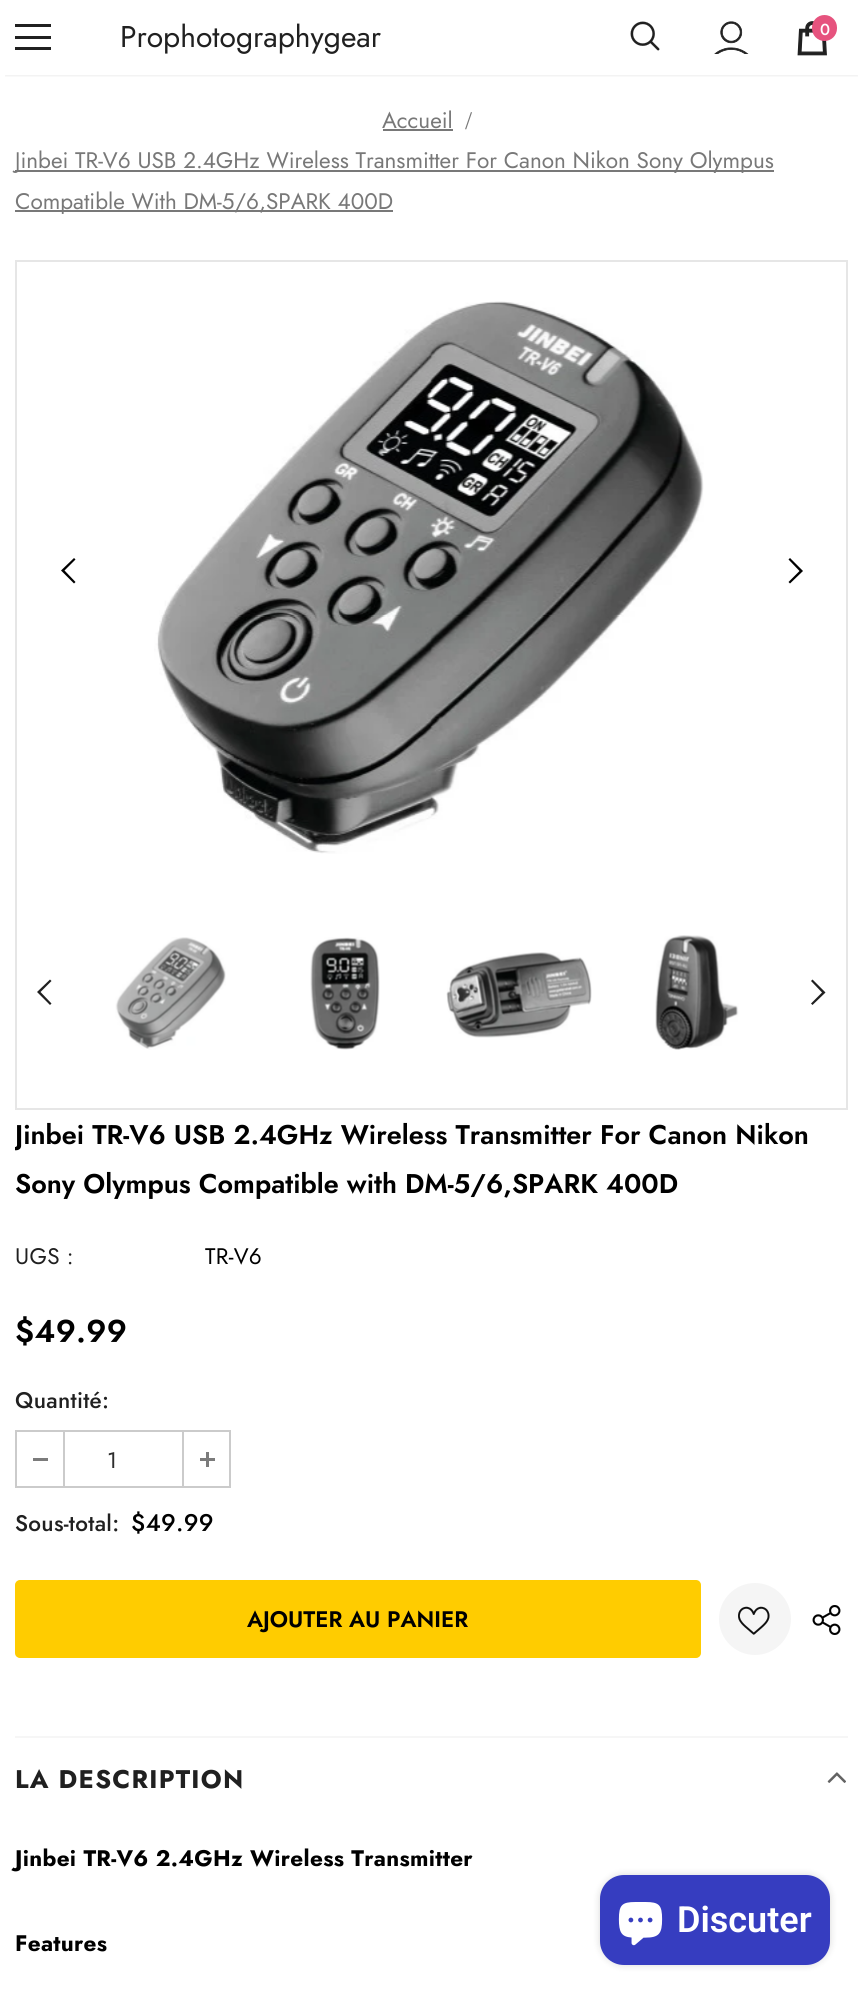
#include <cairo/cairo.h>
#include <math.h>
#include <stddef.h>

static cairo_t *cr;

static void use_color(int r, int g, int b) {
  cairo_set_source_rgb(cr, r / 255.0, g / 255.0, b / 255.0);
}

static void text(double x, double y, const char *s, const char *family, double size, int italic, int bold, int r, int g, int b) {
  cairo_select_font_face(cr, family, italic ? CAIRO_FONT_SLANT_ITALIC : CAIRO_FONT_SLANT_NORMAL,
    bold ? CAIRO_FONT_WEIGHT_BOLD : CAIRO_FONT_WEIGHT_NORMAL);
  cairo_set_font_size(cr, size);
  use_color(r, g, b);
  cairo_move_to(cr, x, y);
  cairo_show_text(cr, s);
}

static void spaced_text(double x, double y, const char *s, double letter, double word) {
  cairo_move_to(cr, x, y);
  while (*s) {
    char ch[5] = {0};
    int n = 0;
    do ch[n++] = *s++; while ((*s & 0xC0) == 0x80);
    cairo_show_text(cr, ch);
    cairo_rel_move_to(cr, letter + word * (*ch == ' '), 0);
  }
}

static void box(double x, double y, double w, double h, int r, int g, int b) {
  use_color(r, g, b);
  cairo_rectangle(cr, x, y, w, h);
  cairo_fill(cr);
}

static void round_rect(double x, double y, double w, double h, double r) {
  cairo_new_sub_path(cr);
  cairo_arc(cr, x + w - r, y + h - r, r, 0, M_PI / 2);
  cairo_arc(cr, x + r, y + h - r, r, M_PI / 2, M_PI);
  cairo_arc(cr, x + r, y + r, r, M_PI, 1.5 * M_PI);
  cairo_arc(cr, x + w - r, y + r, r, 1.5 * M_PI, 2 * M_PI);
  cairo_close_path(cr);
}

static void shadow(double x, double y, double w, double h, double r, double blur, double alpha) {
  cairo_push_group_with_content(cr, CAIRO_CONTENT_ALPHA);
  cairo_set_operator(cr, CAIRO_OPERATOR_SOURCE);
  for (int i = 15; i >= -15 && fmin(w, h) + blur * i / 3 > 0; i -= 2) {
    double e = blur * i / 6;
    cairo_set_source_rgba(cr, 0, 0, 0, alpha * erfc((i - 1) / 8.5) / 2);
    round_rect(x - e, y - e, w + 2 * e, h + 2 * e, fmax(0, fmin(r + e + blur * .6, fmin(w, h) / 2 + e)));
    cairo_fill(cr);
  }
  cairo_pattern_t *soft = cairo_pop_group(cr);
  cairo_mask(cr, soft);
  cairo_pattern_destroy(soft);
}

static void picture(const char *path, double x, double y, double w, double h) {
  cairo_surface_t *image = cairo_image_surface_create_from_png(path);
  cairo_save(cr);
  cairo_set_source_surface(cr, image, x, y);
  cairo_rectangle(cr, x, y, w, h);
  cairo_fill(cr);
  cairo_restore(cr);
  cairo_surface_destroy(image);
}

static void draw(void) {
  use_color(255, 255, 255);
  cairo_paint(cr);
  cairo_save(cr);
  cairo_rectangle(cr, 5, 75, 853, 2);
  cairo_clip(cr);
  use_color(0, 0, 0);
  shadow(5, 9, 853, 66, 0, 2, 0.12);
  cairo_restore(cr);
  box(15, 24, 36, 3, 32, 32, 32);
  box(15, 36, 36, 3, 32, 32, 32);
  box(15, 47, 36, 3, 32, 32, 32);
  picture("img_01.png", 630, 21, 30, 30);
  picture("img_02.png", 714, 21, 35, 33);
  picture("img_03.png", 797, 21, 30, 35);
  use_color(230, 83, 126);
  round_rect(812, 15, 25, 26, 12.5);
  cairo_fill(cr);
  box(383, 129, 70, 2, 120, 120, 120);
  box(15, 170, 759, 2, 120, 120, 120);
  box(15, 210, 378, 2, 120, 120, 120);
  cairo_rectangle(cr, 16, 261, 831, 848);
  use_color(230, 230, 230);
  cairo_stroke(cr);
  use_color(0, 0, 0);
  cairo_new_path(cr);
  cairo_move_to(cr, 75.5, 559.5);
  cairo_line_to(cr, 74, 558);
  cairo_line_to(cr, 61, 570.5);
  cairo_line_to(cr, 74, 583.5);
  cairo_line_to(cr, 75.5, 582);
  cairo_line_to(cr, 64.5, 570.5);
  cairo_close_path(cr);
  cairo_fill(cr);
  picture("img_04.png", 154, 301, 550, 553);
  cairo_new_path(cr);
  cairo_move_to(cr, 790, 558);
  cairo_line_to(cr, 788.5, 559.5);
  cairo_line_to(cr, 799.5, 571);
  cairo_line_to(cr, 788.5, 582);
  cairo_line_to(cr, 790, 583.5);
  cairo_line_to(cr, 803, 571);
  cairo_close_path(cr);
  cairo_fill(cr);
  use_color(32, 32, 32);
  cairo_new_path(cr);
  cairo_move_to(cr, 51.5, 981);
  cairo_line_to(cr, 50, 979.5);
  cairo_line_to(cr, 37, 992);
  cairo_line_to(cr, 50, 1005);
  cairo_line_to(cr, 51.5, 1003.5);
  cairo_line_to(cr, 40.5, 992);
  cairo_close_path(cr);
  cairo_fill(cr);
  picture("img_05.png", 115, 937, 111, 113);
  picture("img_06.png", 310, 937, 70, 113);
  picture("img_07.png", 446, 952, 146, 86);
  picture("img_08.png", 655, 935, 84, 115);
  cairo_new_path(cr);
  cairo_move_to(cr, 812.5, 979.5);
  cairo_line_to(cr, 811, 981);
  cairo_line_to(cr, 822, 992.5);
  cairo_line_to(cr, 811, 1003.5);
  cairo_line_to(cr, 812.5, 1005);
  cairo_line_to(cr, 825.5, 992.5);
  cairo_close_path(cr);
  cairo_fill(cr);
  cairo_rectangle(cr, 16, 1431, 214, 56);
  use_color(203, 203, 203);
  cairo_stroke(cr);
  box(63, 1431, 2, 56, 203, 203, 203);
  box(33, 1458, 15, 3, 123, 123, 123);
  box(182, 1431, 2, 56, 203, 203, 203);
  box(200, 1458, 15, 3, 123, 123, 123);
  box(206, 1452, 3, 15, 123, 123, 123);
  use_color(255, 204, 0);
  round_rect(16, 1581, 684, 76, 4);
  cairo_fill_preserve(cr);
  cairo_stroke(cr);
  use_color(245, 245, 245);
  cairo_arc(cr, 755, 1619, 35, 0, 2 * M_PI);
  cairo_fill_preserve(cr);
  cairo_stroke(cr);
  picture("img_09.png", 738, 1606, 32, 29);
  picture("img_10.png", 812, 1605, 29, 30);
  box(15, 1736, 833, 2, 246, 246, 246);
  picture("img_11.png", 827, 1772, 19, 11);
  use_color(0, 0, 0);
  shadow(600, 1875, 230, 90, 24, 4, 0.15);
  use_color(54, 61, 192);
  round_rect(600, 1875, 230, 90, 24);
  cairo_fill(cr);
  picture("img_12.png", 618, 1902, 45, 44);
  text(120, 47, "Prophotographygear", "Jost", 30, 0, 0, 32, 32, 32);
  text(820, 35, "0", "Jost Medium", 16, 0, 0, 255, 255, 255);
  text(382, 128, "Accueil", "Jost", 22.5, 0, 0, 120, 120, 120);
  text(465, 129, "/", "Liberation Serif", 25.5, 0, 0, 120, 120, 120);
  text(15, 168, "Jinbei TR-V6 USB 2.4GHz Wireless Transmitter For Canon Nikon Sony Olympus", "Jost", 22.5, 0, 0, 120, 120, 120);
  text(15, 209, "Compatible With DM-5/6,SPARK 400D", "Jost", 22.5, 0, 0, 120, 120, 120);
  cairo_save(cr);
  cairo_rectangle(cr, 15, 1110, 833, 99);
  cairo_clip(cr);
  text(15, 1144, "Jinbei TR-V6 USB 2.4GHz Wireless Transmitter For Canon Nikon", "Jost SemiBold", 27, 0, 0, 0, 0, 0);
  cairo_restore(cr);
  text(15, 1193, "Sony Olympus Compatible with DM-5/6,SPARK 400D", "Jost SemiBold", 27, 0, 0, 0, 0, 0);
  cairo_select_font_face(cr, "Jost", CAIRO_FONT_SLANT_NORMAL, CAIRO_FONT_WEIGHT_NORMAL);
  cairo_set_font_size(cr, 22.5);
  use_color(32, 32, 32);
  spaced_text(15, 1264, "UGS :", 0.3, 0);
  use_color(0, 0, 0);
  spaced_text(205, 1264, "TR-V6", 0.3, 0);
  cairo_select_font_face(cr, "Jost SemiBold", CAIRO_FONT_SLANT_NORMAL, CAIRO_FONT_WEIGHT_NORMAL);
  cairo_set_font_size(cr, 31.5);
  spaced_text(15, 1342, "$49.99", 0.3, 0);
  cairo_select_font_face(cr, "Jost Medium", CAIRO_FONT_SLANT_NORMAL, CAIRO_FONT_WEIGHT_NORMAL);
  cairo_set_font_size(cr, 22.5);
  use_color(32, 32, 32);
  spaced_text(15, 1408, "Quantité:", 0.3, 0);
  text(107, 1468, "1", "Jost", 22.5, 0, 0, 45, 45, 45);
  cairo_select_font_face(cr, "Jost Medium", CAIRO_FONT_SLANT_NORMAL, CAIRO_FONT_WEIGHT_NORMAL);
  use_color(32, 32, 32);
  spaced_text(15, 1531, "Sous-total:", 0.3, 0);
  cairo_set_font_size(cr, 24);
  use_color(0, 0, 0);
  spaced_text(131, 1531, "$49.99", 0.3, 0);
  text(247, 1627, "AJOUTER AU PANIER", "Jost SemiBold", 22.5, 0, 0, 0, 0, 0);
  cairo_select_font_face(cr, "Jost", CAIRO_FONT_SLANT_NORMAL, CAIRO_FONT_WEIGHT_BOLD);
  cairo_set_font_size(cr, 25.5);
  use_color(32, 32, 32);
  spaced_text(15, 1788, "LA DESCRIPTION", 1.25, 0);
  cairo_set_font_size(cr, 22.5);
  use_color(0, 0, 0);
  spaced_text(15, 1866, "Jinbei TR-V6 2.4GHz Wireless Transmitter", 0.3, 0);
  spaced_text(15, 1951, "Features", 0.3, 0);
  text(677, 1932, "Discuter", "Roboto SemiBold", 36, 0, 0, 255, 255, 255);
}

int main(void) {
  cairo_surface_t *surface = cairo_image_surface_create(CAIRO_FORMAT_RGB24, 862, 1996);
  cr = cairo_create(surface);
  cairo_font_options_t *options = cairo_font_options_create();
  cairo_font_options_set_hint_metrics(options, CAIRO_HINT_METRICS_OFF);
  cairo_font_options_set_hint_style(options, CAIRO_HINT_STYLE_NONE);
  cairo_set_font_options(cr, options);
  cairo_set_miter_limit(cr, 4);
  draw();
  cairo_surface_write_to_png(surface, "out.png");
  cairo_font_options_destroy(options);
  cairo_destroy(cr);
  cairo_surface_destroy(surface);
  return 0;
}
